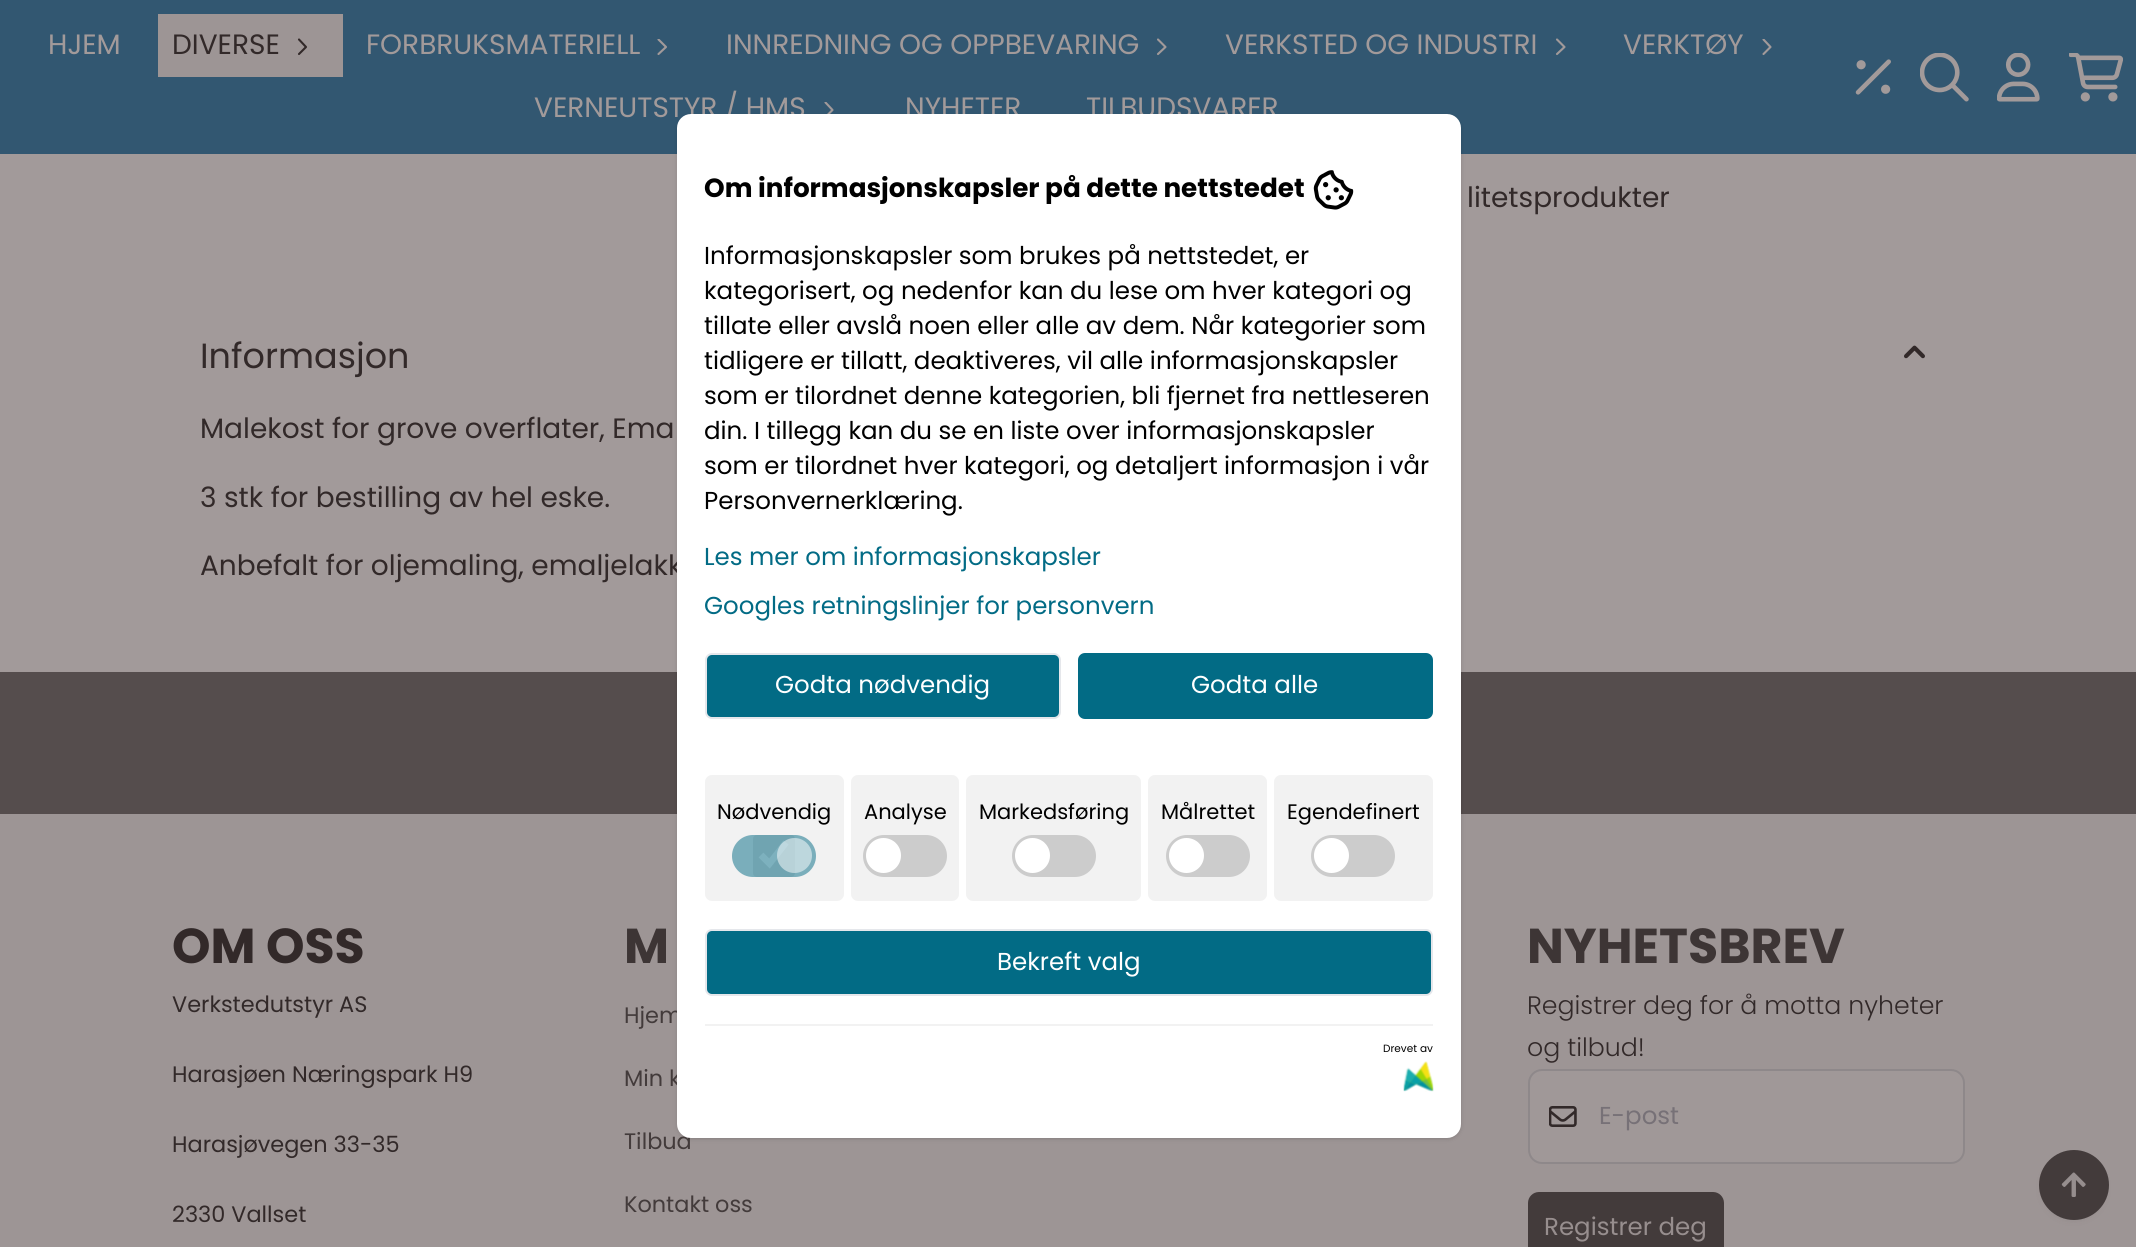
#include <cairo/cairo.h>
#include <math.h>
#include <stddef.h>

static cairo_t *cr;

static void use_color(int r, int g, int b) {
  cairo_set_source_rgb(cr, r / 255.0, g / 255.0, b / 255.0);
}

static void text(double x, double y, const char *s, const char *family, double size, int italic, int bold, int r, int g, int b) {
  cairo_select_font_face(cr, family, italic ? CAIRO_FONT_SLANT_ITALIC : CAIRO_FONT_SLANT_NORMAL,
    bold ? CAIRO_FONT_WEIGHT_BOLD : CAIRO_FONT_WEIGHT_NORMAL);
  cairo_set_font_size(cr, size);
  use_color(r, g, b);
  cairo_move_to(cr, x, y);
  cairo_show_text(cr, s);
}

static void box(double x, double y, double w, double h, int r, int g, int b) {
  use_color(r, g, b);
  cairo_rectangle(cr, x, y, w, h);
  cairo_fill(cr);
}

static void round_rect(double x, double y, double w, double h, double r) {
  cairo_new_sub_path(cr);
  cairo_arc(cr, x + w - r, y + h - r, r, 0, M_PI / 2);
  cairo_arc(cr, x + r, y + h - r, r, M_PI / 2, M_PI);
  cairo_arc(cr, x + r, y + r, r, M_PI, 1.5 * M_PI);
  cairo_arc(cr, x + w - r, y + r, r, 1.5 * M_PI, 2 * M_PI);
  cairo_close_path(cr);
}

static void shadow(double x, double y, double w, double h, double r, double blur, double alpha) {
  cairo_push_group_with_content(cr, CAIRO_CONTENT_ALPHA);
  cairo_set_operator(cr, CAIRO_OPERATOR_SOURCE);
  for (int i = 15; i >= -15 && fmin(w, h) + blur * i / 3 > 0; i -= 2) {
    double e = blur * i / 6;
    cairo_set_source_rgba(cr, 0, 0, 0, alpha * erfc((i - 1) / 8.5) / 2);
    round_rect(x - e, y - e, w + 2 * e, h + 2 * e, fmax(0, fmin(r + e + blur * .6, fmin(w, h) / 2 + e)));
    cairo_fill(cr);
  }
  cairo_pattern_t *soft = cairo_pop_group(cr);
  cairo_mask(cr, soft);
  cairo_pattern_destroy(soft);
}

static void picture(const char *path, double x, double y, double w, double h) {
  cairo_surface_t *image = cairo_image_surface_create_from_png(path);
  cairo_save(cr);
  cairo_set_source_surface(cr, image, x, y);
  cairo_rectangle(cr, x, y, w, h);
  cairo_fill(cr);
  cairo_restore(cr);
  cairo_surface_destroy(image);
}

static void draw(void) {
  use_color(162, 154, 154);
  cairo_paint(cr);
  box(0, 0, 2136, 154, 50, 87, 113);
  box(158, 14, 185, 63, 157, 149, 149);
  cairo_new_path(cr);
  cairo_move_to(cr, 299, 39.5);
  cairo_line_to(cr, 306, 47);
  cairo_line_to(cr, 299, 54);
  use_color(50, 41, 41);
  cairo_set_line_width(cr, 2.1);
  cairo_set_line_cap(cr, CAIRO_LINE_CAP_ROUND);
  cairo_set_line_join(cr, CAIRO_LINE_JOIN_ROUND);
  cairo_stroke(cr);
  cairo_save(cr);
  cairo_rectangle(cr, 655, 39, 21, 21);
  cairo_clip(cr);
  cairo_new_path(cr);
  cairo_move_to(cr, 658.5, 39.5);
  cairo_line_to(cr, 666, 47);
  cairo_line_to(cr, 658.5, 54);
  use_color(162, 154, 154);
  cairo_stroke(cr);
  cairo_restore(cr);
  cairo_new_path(cr);
  cairo_move_to(cr, 1158, 39.5);
  cairo_line_to(cr, 1165.5, 47);
  cairo_line_to(cr, 1158, 54);
  use_color(162, 154, 154);
  cairo_stroke(cr);
  cairo_new_path(cr);
  cairo_move_to(cr, 1557, 39.5);
  cairo_line_to(cr, 1564.5, 47);
  cairo_line_to(cr, 1557, 54);
  cairo_stroke(cr);
  cairo_save(cr);
  cairo_rectangle(cr, 1757, 39, 21, 21);
  cairo_clip(cr);
  cairo_new_path(cr);
  cairo_move_to(cr, 1763.5, 39.5);
  cairo_line_to(cr, 1770.5, 47);
  cairo_line_to(cr, 1763.5, 54);
  cairo_stroke(cr);
  cairo_restore(cr);
  cairo_save(cr);
  cairo_rectangle(cr, 819, 102, 21, 21);
  cairo_clip(cr);
  cairo_new_path(cr);
  cairo_move_to(cr, 825.5, 102.5);
  cairo_line_to(cr, 832.5, 110);
  cairo_line_to(cr, 825.5, 117);
  cairo_stroke(cr);
  cairo_restore(cr);
  picture("img_01.png", 1855, 59, 36, 36);
  picture("img_02.png", 1920, 53, 49, 49);
  picture("img_03.png", 1997, 53, 43, 49);
  picture("img_04.png", 2069, 53, 54, 49);
  picture("img_05.png", 1904, 345, 21, 14);
  box(0, 672, 2136, 142, 85, 77, 77);
  box(0, 814, 2136, 433, 157, 149, 149);
  use_color(160, 152, 152);
  round_rect(1529, 1070, 435, 93, 13);
  cairo_fill_preserve(cr);
  use_color(142, 136, 138);
  cairo_set_line_width(cr, 2);
  cairo_set_line_cap(cr, CAIRO_LINE_CAP_BUTT);
  cairo_set_line_join(cr, CAIRO_LINE_JOIN_MITER);
  cairo_stroke(cr);
  picture("img_06.png", 1549, 1106, 28, 21);
  use_color(67, 59, 59);
  round_rect(1528, 1192, 196, 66, 11);
  cairo_fill(cr);
  use_color(0, 0, 0);
  shadow(679, 117, 781, 1021, 12, 2, 0.1);
  shadow(677, 116, 784, 1023, 14, 2.5, 0.1);
  use_color(50, 41, 41);
  shadow(2042, 1157, 63, 63, 31.5, 3.5, 0.1);
  use_color(67, 59, 59);
  cairo_arc(cr, 2074, 1185, 35, 0, 2 * M_PI);
  cairo_fill(cr);
  picture("img_09.png", 2061, 1172, 25, 25);
  text(48, 54, "HJEM", "Poppins", 28, 0, 0, 162, 154, 154);
  text(172, 54, "DIVERSE", "Poppins", 28, 0, 0, 50, 41, 41);
  text(366, 54, "FORBRUKSMATERIELL", "Poppins", 28, 0, 0, 162, 154, 154);
  text(726, 54, "INNREDNING OG OPPBEVARING", "Poppins", 28, 0, 0, 162, 154, 154);
  text(1225, 54, "VERKSTED OG INDUSTRI", "Poppins", 28, 0, 0, 162, 154, 154);
  text(1623, 54, "VERKTØY", "Poppins", 28, 0, 0, 162, 154, 154);
  text(534, 117, "VERNEUTSTYR / HMS", "Poppins", 28, 0, 0, 162, 154, 154);
  text(905, 117, "NYHETER", "Poppins", 28, 0, 0, 162, 154, 154);
  text(1086, 117, "TILBUDSVARER", "Poppins", 28, 0, 0, 162, 154, 154);
  text(1467, 207, "litetsprodukter", "Poppins", 28, 0, 0, 50, 41, 41);
  text(200, 368, "Informasjon", "Poppins", 35, 0, 0, 50, 41, 41);
  text(200, 438, "Malekost for grove overflater, Ema", "Poppins", 28, 0, 0, 50, 41, 41);
  text(200, 507, "3 stk for bestilling av hel eske.", "Poppins", 28, 0, 0, 50, 41, 41);
  text(200, 575, "Anbefalt for oljemaling, emaljelakk", "Poppins", 28, 0, 0, 50, 41, 41);
  text(172, 963, "OM OSS", "Poppins", 49, 0, 1, 50, 41, 41);
  text(172, 1012, "Verkstedutstyr AS", "Poppins", 22.4, 0, 0, 50, 41, 41);
  text(172, 1082, "Harasjøen Næringspark H9", "Poppins", 22.4, 0, 0, 50, 41, 41);
  text(172, 1152, "Harasjøvegen 33-35", "Poppins", 22.4, 0, 0, 50, 41, 41);
  text(172, 1222, "2330 Vallset", "Poppins", 22.4, 0, 0, 50, 41, 41);
  text(624, 963, "M", "Poppins", 49, 0, 1, 61, 53, 53);
  text(624, 1023, "Hjem", "Poppins", 22.4, 0, 0, 67, 59, 59);
  text(624, 1086, "Min k", "Poppins", 22.4, 0, 0, 67, 59, 59);
  text(624, 1149, "Tilbud", "Poppins", 22.4, 0, 0, 67, 59, 59);
  text(624, 1212, "Kontakt oss", "Poppins", 22.4, 0, 0, 67, 59, 59);
  text(1527, 963, "NYHETSBREV", "Poppins", 49, 0, 1, 61, 53, 53);
  text(1527, 1014, "Registrer deg for å motta nyheter", "Poppins Light", 25.25, 0, 0, 50, 41, 41);
  text(1527, 1056, "og tilbud!", "Poppins Light", 25.25, 0, 0, 50, 41, 41);
  text(1599, 1124, "E-post", "Poppins", 24.5, 0, 0, 119, 113, 119);
  text(1544, 1235, "Registrer deg", "Poppins", 24.5, 0, 0, 151, 142, 142);
  use_color(255, 255, 255);
  round_rect(677, 114, 784, 1024, 14);
  cairo_fill(cr);
  text(704, 197, "Om informasjonskapsler på dette nettstedet", "Poppins", 26.25, 0, 1, 0, 0, 0);
  picture("img_07.png", 1313, 170, 41, 40);
  text(704, 264, "Informasjonskapsler som brukes på nettstedet, er", "Poppins", 24.5, 0, 0, 0, 0, 0);
  text(704, 299, "kategorisert, og nedenfor kan du lese om hver kategori og", "Poppins", 24.5, 0, 0, 0, 0, 0);
  text(704, 334, "tillate eller avslå noen eller alle av dem. Når kategorier som", "Poppins", 24.5, 0, 0, 0, 0, 0);
  text(704, 369, "tidligere er tillatt, deaktiveres, vil alle informasjonskapsler", "Poppins", 24.5, 0, 0, 0, 0, 0);
  text(704, 404, "som er tilordnet denne kategorien, bli fjernet fra nettleseren", "Poppins", 24.5, 0, 0, 0, 0, 0);
  text(704, 439, "din. I tillegg kan du se en liste over informasjonskapsler", "Poppins", 24.5, 0, 0, 0, 0, 0);
  text(704, 474, "som er tilordnet hver kategori, og detaljert informasjon i vår", "Poppins", 24.5, 0, 0, 0, 0, 0);
  text(704, 509, "Personvernerklæring.", "Poppins", 24.5, 0, 0, 0, 0, 0);
  text(704, 565, "Les mer om informasjonskapsler", "Poppins", 24.5, 0, 0, 2, 107, 133);
  text(704, 614, "Googles retningslinjer for personvern", "Poppins", 24.5, 0, 0, 2, 107, 133);
  round_rect(706, 654, 354, 64, 6);
  cairo_fill_preserve(cr);
  use_color(229, 231, 235);
  cairo_stroke(cr);
  text(775, 693, "Godta nødvendig", "Poppins", 24.5, 0, 0, 255, 255, 255);
  use_color(2, 107, 133);
  round_rect(1078, 653, 355, 66, 7);
  cairo_fill(cr);
  text(1191, 693, "Godta alle", "Poppins", 24.5, 0, 0, 255, 255, 255);
  use_color(242, 242, 242);
  round_rect(705, 775, 139, 126, 7);
  cairo_fill(cr);
  text(717, 819, "Nødvendig", "Poppins", 21, 0, 0, 0, 0, 0);
  use_color(223, 223, 223);
  round_rect(753, 835, 42, 42, 4);
  cairo_fill(cr);
  cairo_new_path(cr);
  cairo_move_to(cr, 761, 855);
  cairo_line_to(cr, 769.5, 863.5);
  cairo_line_to(cr, 786, 842.5);
  use_color(249, 249, 249);
  cairo_set_line_width(cr, 6.7);
  cairo_stroke(cr);
  cairo_set_source_rgba(cr, 0.008, 0.42, 0.522, 0.5);
  round_rect(732, 835, 84, 42, 21);
  cairo_fill(cr);
  cairo_set_source_rgba(cr, 1, 1, 1, 0.5);
  cairo_arc(cr, 794.5, 855.5, 17.5, 0, 2 * M_PI);
  cairo_fill(cr);
  use_color(242, 242, 242);
  round_rect(851, 775, 108, 126, 7);
  cairo_fill(cr);
  text(864, 819, "Analyse", "Poppins", 21, 0, 0, 0, 0, 0);
  use_color(204, 204, 204);
  round_rect(863, 835, 84, 42, 21);
  cairo_fill(cr);
  use_color(255, 255, 255);
  cairo_arc(cr, 883.5, 855.5, 17.5, 0, 2 * M_PI);
  cairo_fill(cr);
  use_color(242, 242, 242);
  round_rect(966, 775, 175, 126, 7);
  cairo_fill(cr);
  text(979, 819, "Markedsføring", "Poppins", 21, 0, 0, 0, 0, 0);
  use_color(204, 204, 204);
  round_rect(1012, 835, 84, 42, 21);
  cairo_fill(cr);
  use_color(255, 255, 255);
  cairo_arc(cr, 1032.5, 855.5, 17.5, 0, 2 * M_PI);
  cairo_fill(cr);
  use_color(242, 242, 242);
  round_rect(1148, 775, 119, 126, 7);
  cairo_fill(cr);
  text(1161, 819, "Målrettet", "Poppins", 21, 0, 0, 0, 0, 0);
  use_color(204, 204, 204);
  round_rect(1166, 835, 84, 42, 21);
  cairo_fill(cr);
  use_color(255, 255, 255);
  cairo_arc(cr, 1186.5, 855.5, 17.5, 0, 2 * M_PI);
  cairo_fill(cr);
  use_color(242, 242, 242);
  round_rect(1274, 775, 159, 126, 7);
  cairo_fill(cr);
  text(1287, 819, "Egendefinert", "Poppins", 21, 0, 0, 0, 0, 0);
  use_color(204, 204, 204);
  round_rect(1311, 835, 84, 42, 21);
  cairo_fill(cr);
  use_color(255, 255, 255);
  cairo_arc(cr, 1331.5, 855.5, 17.5, 0, 2 * M_PI);
  cairo_fill(cr);
  use_color(2, 107, 133);
  round_rect(706, 930, 726, 65, 6);
  cairo_fill_preserve(cr);
  use_color(229, 231, 235);
  cairo_set_line_width(cr, 2);
  cairo_stroke(cr);
  text(997, 970, "Bekreft valg", "Poppins", 24.5, 0, 0, 255, 255, 255);
  box(705, 1024, 728, 2, 242, 242, 242);
  text(1383, 1052, "Drevet av", "Poppins", 10.5, 0, 0, 0, 0, 0);
  picture("img_08.png", 1403, 1061, 31, 31);
}

int main(void) {
  cairo_surface_t *surface = cairo_image_surface_create(CAIRO_FORMAT_RGB24, 2136, 1247);
  cr = cairo_create(surface);
  cairo_font_options_t *options = cairo_font_options_create();
  cairo_font_options_set_hint_metrics(options, CAIRO_HINT_METRICS_OFF);
  cairo_font_options_set_hint_style(options, CAIRO_HINT_STYLE_NONE);
  cairo_set_font_options(cr, options);
  cairo_set_miter_limit(cr, 4);
  draw();
  cairo_surface_write_to_png(surface, "out.png");
  cairo_font_options_destroy(options);
  cairo_destroy(cr);
  cairo_surface_destroy(surface);
  return 0;
}
